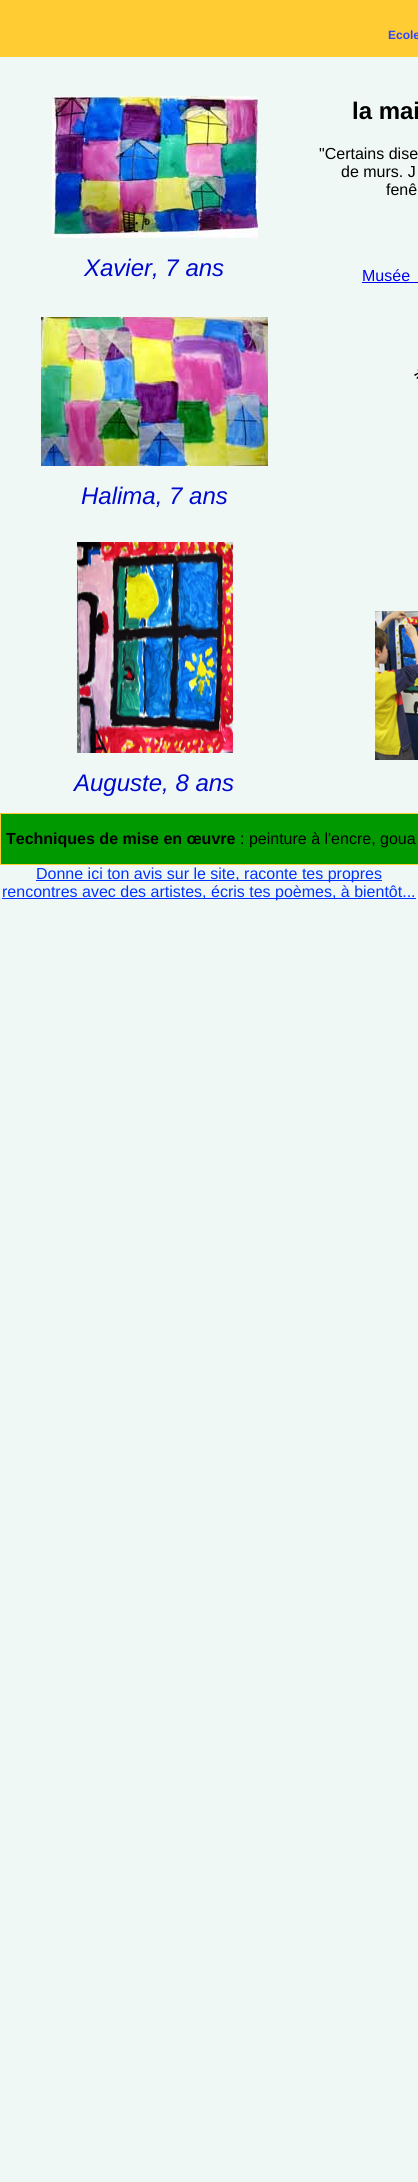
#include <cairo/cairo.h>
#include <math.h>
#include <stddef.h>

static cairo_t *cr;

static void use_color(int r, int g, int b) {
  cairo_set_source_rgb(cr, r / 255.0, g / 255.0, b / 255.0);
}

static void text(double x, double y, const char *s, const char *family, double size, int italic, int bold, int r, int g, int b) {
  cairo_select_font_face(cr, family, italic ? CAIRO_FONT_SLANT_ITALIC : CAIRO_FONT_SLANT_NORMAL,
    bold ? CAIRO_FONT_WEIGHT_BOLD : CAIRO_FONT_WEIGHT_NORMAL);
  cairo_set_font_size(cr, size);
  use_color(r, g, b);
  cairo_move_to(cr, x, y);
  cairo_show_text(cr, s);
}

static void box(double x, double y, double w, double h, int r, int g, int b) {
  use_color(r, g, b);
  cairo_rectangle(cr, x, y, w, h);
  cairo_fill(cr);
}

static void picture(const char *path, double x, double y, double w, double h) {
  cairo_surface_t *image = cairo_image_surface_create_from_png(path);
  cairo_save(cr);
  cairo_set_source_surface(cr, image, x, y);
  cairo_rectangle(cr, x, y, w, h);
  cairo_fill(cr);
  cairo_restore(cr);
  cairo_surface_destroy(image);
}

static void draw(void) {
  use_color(240, 248, 246);
  cairo_paint(cr);
  box(0, 0, 418, 57, 255, 204, 51);
  picture("img_01.png", 52, 96, 206, 142);
  box(362, 282, 56, 1, 0, 0, 238);
  picture("img_02.png", 414, 369, 4, 10);
  picture("img_03.png", 41, 317, 227, 149);
  picture("img_04.png", 375, 611, 43, 149);
  picture("img_05.png", 77, 542, 156, 211);
  use_color(0, 153, 0);
  cairo_rectangle(cr, 0.5, 813.5, 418, 51);
  cairo_fill_preserve(cr);
  use_color(255, 204, 51);
  cairo_set_line_width(cr, 1);
  cairo_stroke(cr);
  box(36, 880, 346, 1, 0, 51, 255);
  box(2, 898, 414, 1, 0, 51, 255);
  text(388, 39, "Ecole", "Liberation Sans", 12, 0, 1, 46, 69, 255);
  text(84, 276, "Xavier, 7 ans", "Liberation Sans", 24, 1, 0, 0, 10, 204);
  text(352, 119, "la mai", "Liberation Sans", 24, 0, 1, 0, 0, 0);
  text(319, 159, "\"Certains dise", "Liberation Sans", 16, 0, 0, 0, 0, 0);
  text(341, 177, "de murs. J", "Liberation Sans", 16, 0, 0, 0, 0, 0);
  text(386, 195, "fenê", "Liberation Sans", 16, 0, 0, 0, 0, 0);
  text(362, 281, "Musée", "Liberation Sans", 16, 0, 0, 0, 0, 238);
  text(81, 504, "Halima, 7 ans", "Liberation Sans", 24, 1, 0, 0, 10, 204);
  text(74, 791, "Auguste, 8 ans", "Liberation Sans", 24, 1, 0, 0, 10, 204);
  text(6, 844, "Techniques de mise en œuvre", "Liberation Sans", 16, 0, 1, 0, 0, 0);
  text(240, 844, ": peinture à l'encre, goua", "Liberation Sans", 16, 0, 0, 0, 0, 0);
  text(36, 879, "Donne ici ton avis sur le site, raconte tes propres", "Liberation Sans", 16, 0, 0, 0, 51, 255);
  text(2, 897, "rencontres avec des artistes, écris tes poèmes, à bientôt...", "Liberation Sans", 16, 0, 0, 0, 51, 255);
}

int main(void) {
  cairo_surface_t *surface = cairo_image_surface_create(CAIRO_FORMAT_RGB24, 418, 2182);
  cr = cairo_create(surface);
  cairo_font_options_t *options = cairo_font_options_create();
  cairo_font_options_set_hint_metrics(options, CAIRO_HINT_METRICS_OFF);
  cairo_font_options_set_hint_style(options, CAIRO_HINT_STYLE_NONE);
  cairo_set_font_options(cr, options);
  cairo_set_miter_limit(cr, 4);
  draw();
  cairo_surface_write_to_png(surface, "out.png");
  cairo_font_options_destroy(options);
  cairo_destroy(cr);
  cairo_surface_destroy(surface);
  return 0;
}
